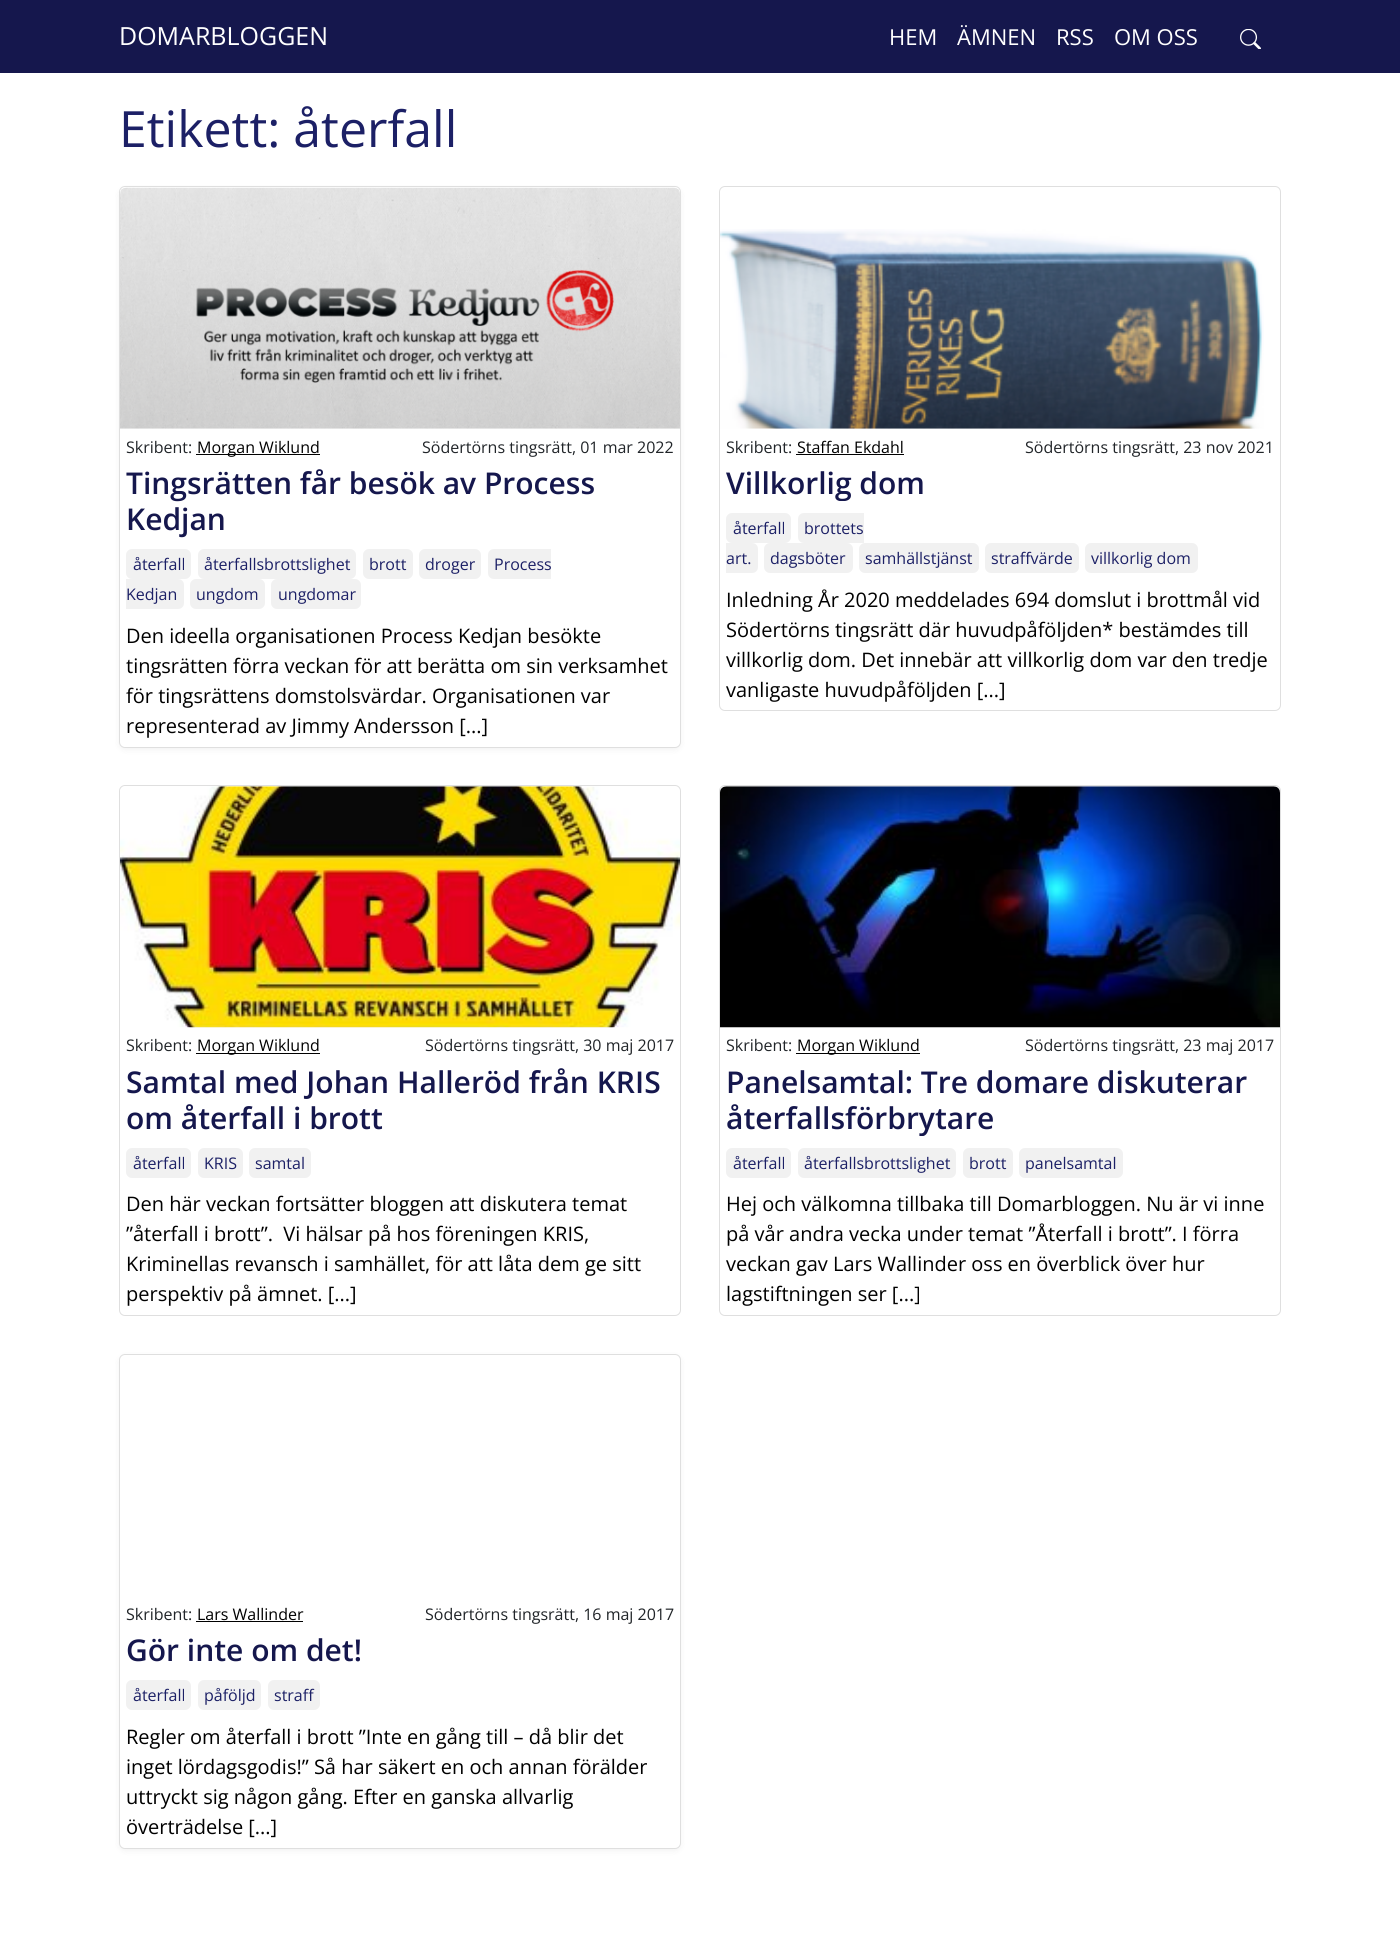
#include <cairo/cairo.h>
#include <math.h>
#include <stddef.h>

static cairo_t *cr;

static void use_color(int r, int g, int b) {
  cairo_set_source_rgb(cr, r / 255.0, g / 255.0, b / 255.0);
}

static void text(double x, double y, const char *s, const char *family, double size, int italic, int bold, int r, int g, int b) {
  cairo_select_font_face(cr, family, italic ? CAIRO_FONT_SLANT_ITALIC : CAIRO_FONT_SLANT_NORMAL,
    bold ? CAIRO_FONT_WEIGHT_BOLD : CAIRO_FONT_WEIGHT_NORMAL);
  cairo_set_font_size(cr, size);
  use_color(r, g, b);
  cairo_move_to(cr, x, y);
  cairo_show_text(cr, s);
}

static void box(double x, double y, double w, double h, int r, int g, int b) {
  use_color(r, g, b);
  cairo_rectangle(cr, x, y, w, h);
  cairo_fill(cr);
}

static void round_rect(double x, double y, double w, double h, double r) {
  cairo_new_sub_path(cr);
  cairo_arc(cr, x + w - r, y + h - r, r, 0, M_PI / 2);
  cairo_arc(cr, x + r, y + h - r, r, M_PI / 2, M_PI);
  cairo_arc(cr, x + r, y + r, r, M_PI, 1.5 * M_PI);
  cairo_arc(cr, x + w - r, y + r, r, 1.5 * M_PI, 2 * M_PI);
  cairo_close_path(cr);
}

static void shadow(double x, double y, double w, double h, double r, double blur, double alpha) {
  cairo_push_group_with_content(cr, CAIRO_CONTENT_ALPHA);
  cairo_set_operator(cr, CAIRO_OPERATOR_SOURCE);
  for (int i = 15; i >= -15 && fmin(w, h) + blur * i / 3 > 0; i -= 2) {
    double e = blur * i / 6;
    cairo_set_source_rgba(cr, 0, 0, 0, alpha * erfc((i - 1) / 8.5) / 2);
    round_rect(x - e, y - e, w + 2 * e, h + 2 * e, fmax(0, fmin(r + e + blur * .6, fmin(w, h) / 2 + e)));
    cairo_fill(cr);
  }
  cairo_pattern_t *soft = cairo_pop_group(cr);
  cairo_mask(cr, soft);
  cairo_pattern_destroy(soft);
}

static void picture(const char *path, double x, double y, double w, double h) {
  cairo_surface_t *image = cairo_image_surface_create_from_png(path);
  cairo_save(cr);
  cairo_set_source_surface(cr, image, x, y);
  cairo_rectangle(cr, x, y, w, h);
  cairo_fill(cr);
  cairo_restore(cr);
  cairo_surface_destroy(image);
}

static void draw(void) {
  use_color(255, 255, 255);
  cairo_paint(cr);
  box(0, 0, 1400, 73, 21, 23, 77);
  picture("img_01.png", 1240, 29, 21, 20);
  use_color(0, 0, 0);
  shadow(119, 189, 562, 561, 6, 3, 0.05);
  use_color(255, 255, 255);
  round_rect(119.5, 186.5, 561, 561, 5.5);
  cairo_fill_preserve(cr);
  use_color(223, 223, 223);
  cairo_set_line_width(cr, 1);
  cairo_stroke(cr);
  picture("img_02.png", 120, 187, 560, 242);
  box(196, 454, 124, 1, 0, 0, 0);
  use_color(241, 241, 241);
  round_rect(126, 549, 65, 30, 6);
  cairo_fill(cr);
  round_rect(198, 549, 158, 30, 6);
  cairo_fill(cr);
  round_rect(363, 549, 50, 30, 6);
  cairo_fill(cr);
  round_rect(419, 549, 62, 30, 6);
  cairo_fill(cr);
  cairo_new_path(cr);
  cairo_move_to(cr, 494, 549);
  cairo_line_to(cr, 551, 549);
  cairo_line_to(cr, 551, 579);
  cairo_line_to(cr, 494, 579);
  cairo_curve_to(cr, 490.5, 579, 488, 576.5, 488, 573);
  cairo_line_to(cr, 488, 555);
  cairo_curve_to(cr, 488, 551.5, 490.5, 549, 494, 549);
  cairo_close_path(cr);
  cairo_fill(cr);
  cairo_new_path(cr);
  cairo_move_to(cr, 126, 579);
  cairo_line_to(cr, 178, 579);
  cairo_curve_to(cr, 181.5, 579, 184, 581.5, 184, 585);
  cairo_line_to(cr, 184, 603);
  cairo_curve_to(cr, 184, 606.5, 181.5, 609, 178, 609);
  cairo_line_to(cr, 126, 609);
  cairo_close_path(cr);
  cairo_fill(cr);
  round_rect(190, 579, 75, 30, 6);
  cairo_fill(cr);
  round_rect(271, 579, 90, 30, 6);
  cairo_fill(cr);
  round_rect(719.5, 186.5, 561, 524, 5.5);
  use_color(223, 223, 223);
  cairo_stroke(cr);
  picture("img_03.png", 720, 229, 544, 200);
  box(796, 454, 108, 1, 0, 0, 0);
  use_color(241, 241, 241);
  round_rect(726, 513, 65, 30, 6);
  cairo_fill(cr);
  cairo_new_path(cr);
  cairo_move_to(cr, 804, 513);
  cairo_line_to(cr, 864, 513);
  cairo_line_to(cr, 864, 543);
  cairo_line_to(cr, 804, 543);
  cairo_curve_to(cr, 800.5, 543, 798, 540.5, 798, 537);
  cairo_line_to(cr, 798, 519);
  cairo_curve_to(cr, 798, 515.5, 800.5, 513, 804, 513);
  cairo_close_path(cr);
  cairo_fill(cr);
  cairo_new_path(cr);
  cairo_move_to(cr, 726, 543);
  cairo_line_to(cr, 752, 543);
  cairo_curve_to(cr, 755.5, 543, 758, 545.5, 758, 549);
  cairo_line_to(cr, 758, 567);
  cairo_curve_to(cr, 758, 570.5, 755.5, 573, 752, 573);
  cairo_line_to(cr, 726, 573);
  cairo_close_path(cr);
  cairo_fill(cr);
  round_rect(764, 543, 89, 30, 6);
  cairo_fill(cr);
  round_rect(859, 543, 120, 30, 6);
  cairo_fill(cr);
  round_rect(985, 543, 94, 30, 6);
  cairo_fill(cr);
  round_rect(1085, 543, 113, 30, 6);
  cairo_fill(cr);
  round_rect(119.5, 785.5, 561, 530, 5.5);
  use_color(223, 223, 223);
  cairo_stroke(cr);
  picture("img_04.png", 120, 786, 560, 242);
  box(196, 1053, 124, 1, 0, 0, 0);
  use_color(241, 241, 241);
  round_rect(126, 1148, 65, 30, 6);
  cairo_fill(cr);
  round_rect(198, 1148, 45, 30, 6);
  cairo_fill(cr);
  round_rect(249, 1148, 62, 30, 6);
  cairo_fill(cr);
  round_rect(719.5, 785.5, 561, 530, 5.5);
  use_color(223, 223, 223);
  cairo_stroke(cr);
  picture("img_05.png", 720, 786, 560, 242);
  box(796, 1053, 124, 1, 0, 0, 0);
  use_color(241, 241, 241);
  round_rect(726, 1148, 65, 30, 6);
  cairo_fill(cr);
  round_rect(798, 1148, 158, 30, 6);
  cairo_fill(cr);
  round_rect(963, 1148, 50, 30, 6);
  cairo_fill(cr);
  round_rect(1019, 1148, 104, 30, 6);
  cairo_fill(cr);
  use_color(0, 0, 0);
  shadow(119, 1356, 562, 495, 6, 3, 0.05);
  use_color(255, 255, 255);
  round_rect(119.5, 1354.5, 561, 494, 5.5);
  cairo_fill_preserve(cr);
  use_color(223, 223, 223);
  cairo_stroke(cr);
  box(196, 1621, 107, 1, 0, 0, 0);
  use_color(241, 241, 241);
  round_rect(126, 1680, 65, 30, 6);
  cairo_fill(cr);
  round_rect(198, 1680, 63, 30, 6);
  cairo_fill(cr);
  round_rect(268, 1680, 52, 30, 6);
  cairo_fill(cr);
  text(119, 45, "DOMARBLOGGEN", "Open Sans", 25, 0, 0, 255, 255, 255);
  text(889, 45, "HEM", "Open Sans", 22, 0, 0, 255, 255, 255);
  text(957, 45, "ÄMNEN", "Open Sans", 22, 0, 0, 255, 255, 255);
  text(1056, 45, "RSS", "Open Sans", 22, 0, 0, 255, 255, 255);
  text(1114, 45, "OM OSS", "Open Sans", 22, 0, 0, 255, 255, 255);
  text(119, 147, "Etikett: återfall", "Open Sans", 50, 0, 0, 28, 32, 102);
  text(126, 453, "Skribent:", "Open Sans", 16, 0, 0, 33, 37, 41);
  text(197, 453, "Morgan Wiklund", "Open Sans", 16, 0, 0, 0, 0, 0);
  text(422, 453, "Södertörns tingsrätt, 01 mar 2022", "Open Sans", 16, 0, 0, 33, 37, 41);
  text(126, 494, "Tingsrätten får besök av Process", "Open Sans SemiBold", 30, 0, 0, 21, 23, 77);
  text(126, 530, "Kedjan", "Open Sans SemiBold", 30, 0, 0, 21, 23, 77);
  text(133, 570, "återfall", "Open Sans", 16, 0, 0, 28, 32, 102);
  text(204, 570, "återfallsbrottslighet", "Open Sans", 16, 0, 0, 28, 32, 102);
  text(369, 570, "brott", "Open Sans", 16, 0, 0, 28, 32, 102);
  text(425, 570, "droger", "Open Sans", 16, 0, 0, 28, 32, 102);
  text(494, 570, "Process", "Open Sans", 16, 0, 0, 28, 32, 102);
  text(126, 600, "Kedjan", "Open Sans", 16, 0, 0, 28, 32, 102);
  text(196, 600, "ungdom", "Open Sans", 16, 0, 0, 28, 32, 102);
  text(278, 600, "ungdomar", "Open Sans", 16, 0, 0, 28, 32, 102);
  text(126, 643, "Den ideella organisationen Process Kedjan besökte", "Open Sans", 20, 0, 0, 0, 0, 0);
  text(126, 673, "tingsrätten förra veckan för att berätta om sin verksamhet", "Open Sans", 20, 0, 0, 0, 0, 0);
  text(126, 703, "för tingsrättens domstolsvärdar. Organisationen var", "Open Sans", 20, 0, 0, 0, 0, 0);
  text(126, 733, "representerad av Jimmy Andersson [...]", "Open Sans", 20, 0, 0, 0, 0, 0);
  text(726, 453, "Skribent:", "Open Sans", 16, 0, 0, 33, 37, 41);
  text(797, 453, "Staffan Ekdahl", "Open Sans", 16, 0, 0, 0, 0, 0);
  text(1025, 453, "Södertörns tingsrätt, 23 nov 2021", "Open Sans", 16, 0, 0, 33, 37, 41);
  cairo_save(cr);
  cairo_rectangle(cr, 726, 466, 548, 35);
  cairo_clip(cr);
  text(726, 494, "Villkorlig dom", "Open Sans SemiBold", 30, 0, 0, 21, 23, 77);
  cairo_restore(cr);
  text(733, 534, "återfall", "Open Sans", 16, 0, 0, 28, 32, 102);
  text(804, 534, "brottets", "Open Sans", 16, 0, 0, 28, 32, 102);
  text(726, 564, "art.", "Open Sans", 16, 0, 0, 28, 32, 102);
  text(770, 564, "dagsböter", "Open Sans", 16, 0, 0, 28, 32, 102);
  text(865, 564, "samhällstjänst", "Open Sans", 16, 0, 0, 28, 32, 102);
  text(991, 564, "straffvärde", "Open Sans", 16, 0, 0, 28, 32, 102);
  text(1091, 564, "villkorlig dom", "Open Sans", 16, 0, 0, 28, 32, 102);
  text(726, 607, "Inledning År 2020 meddelades 694 domslut i brottmål vid", "Open Sans", 20, 0, 0, 0, 0, 0);
  text(726, 637, "Södertörns tingsrätt där huvudpåföljden* bestämdes till", "Open Sans", 20, 0, 0, 0, 0, 0);
  text(726, 667, "villkorlig dom. Det innebär att villkorlig dom var den tredje", "Open Sans", 20, 0, 0, 0, 0, 0);
  text(726, 697, "vanligaste huvudpåföljden [...]", "Open Sans", 20, 0, 0, 0, 0, 0);
  text(126, 1051, "Skribent:", "Open Sans", 16, 0, 0, 33, 37, 41);
  text(197, 1051, "Morgan Wiklund", "Open Sans", 16, 0, 0, 0, 0, 0);
  text(425, 1051, "Södertörns tingsrätt, 30 maj 2017", "Open Sans", 16, 0, 0, 33, 37, 41);
  text(126, 1093, "Samtal med Johan Halleröd från KRIS", "Open Sans SemiBold", 30, 0, 0, 21, 23, 77);
  text(126, 1129, "om återfall i brott", "Open Sans SemiBold", 30, 0, 0, 21, 23, 77);
  text(133, 1169, "återfall", "Open Sans", 16, 0, 0, 28, 32, 102);
  text(204, 1169, "KRIS", "Open Sans", 16, 0, 0, 28, 32, 102);
  text(255, 1169, "samtal", "Open Sans", 16, 0, 0, 28, 32, 102);
  text(126, 1211, "Den här veckan fortsätter bloggen att diskutera temat", "Open Sans", 20, 0, 0, 0, 0, 0);
  text(126, 1241, "”återfall i brott”.  Vi hälsar på hos föreningen KRIS,", "Open Sans", 20, 0, 0, 0, 0, 0);
  text(126, 1271, "Kriminellas revansch i samhället, för att låta dem ge sitt", "Open Sans", 20, 0, 0, 0, 0, 0);
  text(126, 1301, "perspektiv på ämnet. [...]", "Open Sans", 20, 0, 0, 0, 0, 0);
  text(726, 1051, "Skribent:", "Open Sans", 16, 0, 0, 33, 37, 41);
  text(797, 1051, "Morgan Wiklund", "Open Sans", 16, 0, 0, 0, 0, 0);
  text(1025, 1051, "Södertörns tingsrätt, 23 maj 2017", "Open Sans", 16, 0, 0, 33, 37, 41);
  text(726, 1093, "Panelsamtal: Tre domare diskuterar", "Open Sans SemiBold", 30, 0, 0, 21, 23, 77);
  cairo_save(cr);
  cairo_rectangle(cr, 726, 1064, 548, 72);
  cairo_clip(cr);
  text(726, 1129, "återfallsförbrytare", "Open Sans SemiBold", 30, 0, 0, 21, 23, 77);
  cairo_restore(cr);
  text(733, 1169, "återfall", "Open Sans", 16, 0, 0, 28, 32, 102);
  text(804, 1169, "återfallsbrottslighet", "Open Sans", 16, 0, 0, 28, 32, 102);
  text(969, 1169, "brott", "Open Sans", 16, 0, 0, 28, 32, 102);
  text(1025, 1169, "panelsamtal", "Open Sans", 16, 0, 0, 28, 32, 102);
  text(726, 1211, "Hej och välkomna tillbaka till Domarbloggen. Nu är vi inne", "Open Sans", 20, 0, 0, 0, 0, 0);
  text(726, 1241, "på vår andra vecka under temat ”Återfall i brott”. I förra", "Open Sans", 20, 0, 0, 0, 0, 0);
  text(726, 1271, "veckan gav Lars Wallinder oss en överblick över hur", "Open Sans", 20, 0, 0, 0, 0, 0);
  text(726, 1301, "lagstiftningen ser [...]", "Open Sans", 20, 0, 0, 0, 0, 0);
  text(126, 1620, "Skribent:", "Open Sans", 16, 0, 0, 33, 37, 41);
  text(197, 1620, "Lars Wallinder", "Open Sans", 16, 0, 0, 0, 0, 0);
  text(425, 1620, "Södertörns tingsrätt, 16 maj 2017", "Open Sans", 16, 0, 0, 33, 37, 41);
  text(126, 1661, "Gör inte om det!", "Open Sans SemiBold", 30, 0, 0, 21, 23, 77);
  text(133, 1701, "återfall", "Open Sans", 16, 0, 0, 28, 32, 102);
  text(204, 1701, "påföljd", "Open Sans", 16, 0, 0, 28, 32, 102);
  text(274, 1701, "straff", "Open Sans", 16, 0, 0, 28, 32, 102);
  text(126, 1744, "Regler om återfall i brott ”Inte en gång till – då blir det", "Open Sans", 20, 0, 0, 0, 0, 0);
  text(126, 1774, "inget lördagsgodis!” Så har säkert en och annan förälder", "Open Sans", 20, 0, 0, 0, 0, 0);
  text(126, 1804, "uttryckt sig någon gång. Efter en ganska allvarlig", "Open Sans", 20, 0, 0, 0, 0, 0);
  text(126, 1834, "överträdelse [...]", "Open Sans", 20, 0, 0, 0, 0, 0);
}

int main(void) {
  cairo_surface_t *surface = cairo_image_surface_create(CAIRO_FORMAT_RGB24, 1400, 1934);
  cr = cairo_create(surface);
  cairo_font_options_t *options = cairo_font_options_create();
  cairo_font_options_set_hint_metrics(options, CAIRO_HINT_METRICS_OFF);
  cairo_font_options_set_hint_style(options, CAIRO_HINT_STYLE_NONE);
  cairo_set_font_options(cr, options);
  cairo_set_miter_limit(cr, 4);
  draw();
  cairo_surface_write_to_png(surface, "out.png");
  cairo_font_options_destroy(options);
  cairo_destroy(cr);
  cairo_surface_destroy(surface);
  return 0;
}
